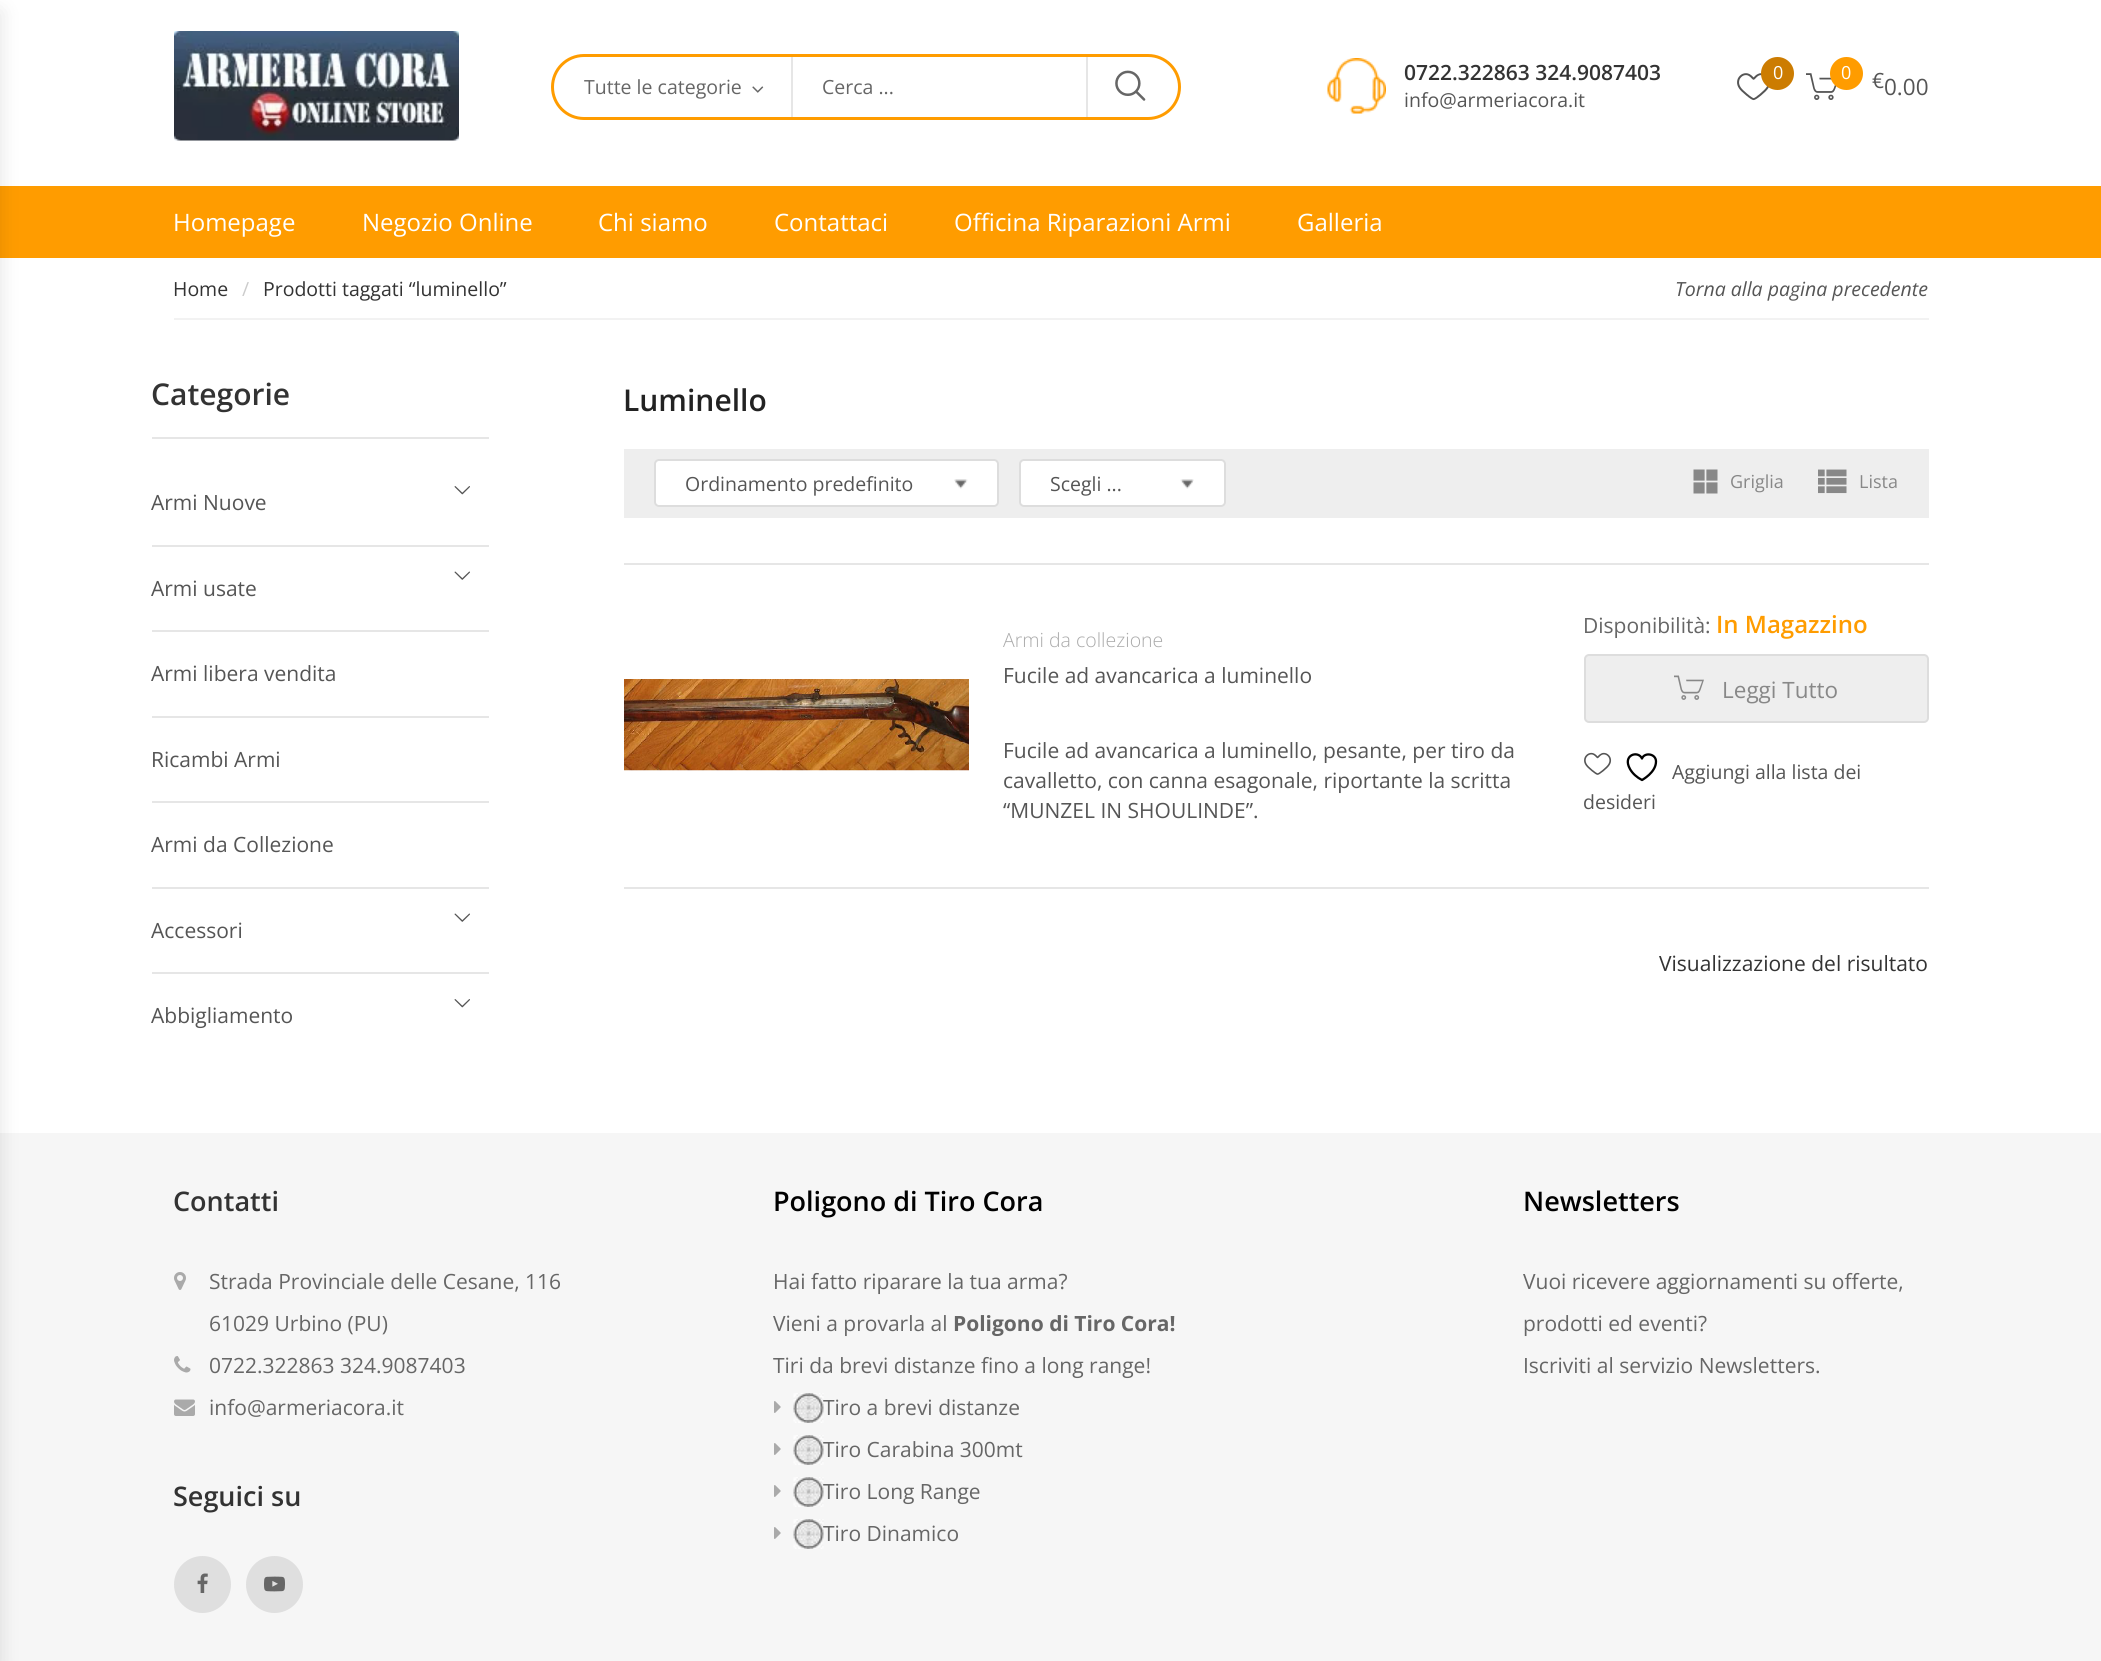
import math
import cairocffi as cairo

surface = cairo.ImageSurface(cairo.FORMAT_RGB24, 2101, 1661)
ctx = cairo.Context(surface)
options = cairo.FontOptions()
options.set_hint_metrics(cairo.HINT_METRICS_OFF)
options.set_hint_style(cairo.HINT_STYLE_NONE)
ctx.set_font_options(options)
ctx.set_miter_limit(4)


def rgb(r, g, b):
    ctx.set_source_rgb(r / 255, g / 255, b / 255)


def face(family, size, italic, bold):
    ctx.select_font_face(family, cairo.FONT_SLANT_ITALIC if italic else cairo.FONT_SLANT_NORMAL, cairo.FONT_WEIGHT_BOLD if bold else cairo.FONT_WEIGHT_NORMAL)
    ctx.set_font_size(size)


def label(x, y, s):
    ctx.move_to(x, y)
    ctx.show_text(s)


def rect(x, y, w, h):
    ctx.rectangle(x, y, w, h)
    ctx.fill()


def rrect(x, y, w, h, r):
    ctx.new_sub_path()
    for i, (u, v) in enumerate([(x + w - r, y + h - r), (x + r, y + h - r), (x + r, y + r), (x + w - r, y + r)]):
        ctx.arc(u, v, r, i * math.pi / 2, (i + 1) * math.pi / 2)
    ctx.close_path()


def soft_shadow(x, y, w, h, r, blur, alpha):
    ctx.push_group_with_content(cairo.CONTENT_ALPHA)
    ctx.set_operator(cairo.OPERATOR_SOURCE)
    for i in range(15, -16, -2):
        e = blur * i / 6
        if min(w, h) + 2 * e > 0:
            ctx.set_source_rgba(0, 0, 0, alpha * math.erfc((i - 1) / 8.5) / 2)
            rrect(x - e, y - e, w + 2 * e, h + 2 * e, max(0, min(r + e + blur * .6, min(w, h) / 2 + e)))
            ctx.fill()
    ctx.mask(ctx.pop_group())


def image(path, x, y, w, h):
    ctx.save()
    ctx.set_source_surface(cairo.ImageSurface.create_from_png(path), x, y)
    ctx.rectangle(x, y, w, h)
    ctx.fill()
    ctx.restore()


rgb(255, 255, 255)
ctx.paint()
rgb(255, 156, 0)
rect(0, 186, 2101, 72)
rgb(246, 246, 246)
rect(0, 1133, 2101, 528)
rgb(0, 0, 0)
soft_shadow(-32, 12, 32, 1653, 0, 10.5, 0.11)
image('image0.png', 174, 31, 285, 110)
rrect(552.5, 55.5, 627, 63, 31.5)
rgb(255, 156, 0)
ctx.set_line_width(3)
ctx.stroke()
rgb(230, 230, 230)
rect(791, 57, 2, 60)
face('Open Sans', 19.5, 0, 0)
rgb(102, 102, 102)
label(584, 94, 'Tutte le categorie')
image('image1.png', 752, 86, 12, 7)
label(822, 94, 'Cerca ...')
rgb(230, 230, 230)
rect(1086, 57, 2, 60)
image('image2.png', 1115, 70, 31, 31)
image('image3.png', 1327, 58, 59, 56)
face('Open Sans SemiBold', 21, 0, 0)
rgb(51, 51, 51)
label(1404, 80, '0722.322863 324.9087403')
face('Open Sans', 19.5, 0, 0)
rgb(85, 85, 85)
label(1404, 107, 'info@armeriacora.it')
image('image4.png', 1737, 73, 32, 28)
rgb(204, 124, 1)
ctx.arc(1777.5, 73.5, 16.5, 0, 2 * math.pi)
ctx.fill()
face('Open Sans', 18, 0, 0)
rgb(255, 255, 255)
label(1773, 79, '0')
image('image5.png', 1806, 73, 31, 27)
rgb(255, 156, 0)
ctx.arc(1846.5, 73.5, 16.5, 0, 2 * math.pi)
ctx.fill()
rgb(255, 255, 255)
label(1841, 79, '0')
face('Open Sans', 21, 0, 0)
rgb(85, 85, 85)
label(1872, 88, '€')
face('Open Sans', 22.5, 0, 0)
label(1884, 95, '0.00')
face('Open Sans', 24, 0, 0)
rgb(255, 255, 255)
label(173, 231, 'Homepage')
label(362, 231, 'Negozio Online')
label(598, 231, 'Chi siamo')
label(774, 231, 'Contattaci')
label(954, 231, 'Officina Riparazioni Armi')
label(1297, 231, 'Galleria')
rgb(242, 242, 242)
rect(174, 318, 1755, 2)
face('Open Sans', 19.5, 0, 0)
rgb(51, 51, 51)
label(173, 296, 'Home')
rgb(204, 204, 204)
label(242, 296, '/')
rgb(51, 51, 51)
label(263, 296, 'Prodotti taggati “luminello”')
face('Open Sans', 19.5, 1, 0)
rgb(85, 85, 85)
label(1675, 296, 'Torna alla pagina precedente')
rgb(230, 230, 230)
rect(152, 437, 337, 2)
face('Open Sans SemiBold', 30, 0, 0)
rgb(51, 51, 51)
label(151, 405, 'Categorie')
rgb(230, 230, 230)
rect(152, 545, 337, 2)
image('image6.png', 454, 486, 16, 9)
face('Open Sans', 21, 0, 0)
rgb(85, 85, 85)
label(151, 510, 'Armi Nuove')
rgb(230, 230, 230)
rect(152, 630, 337, 2)
image('image7.png', 454, 571, 16, 9)
rgb(85, 85, 85)
label(151, 596, 'Armi usate')
rgb(230, 230, 230)
rect(152, 716, 337, 2)
rgb(85, 85, 85)
label(151, 681, 'Armi libera vendita')
rgb(230, 230, 230)
rect(152, 801, 337, 2)
rgb(85, 85, 85)
label(151, 767, 'Ricambi Armi')
rgb(230, 230, 230)
rect(152, 887, 337, 2)
rgb(85, 85, 85)
label(151, 852, 'Armi da Collezione')
rgb(230, 230, 230)
rect(152, 972, 337, 2)
image('image7.png', 454, 913, 16, 9)
rgb(85, 85, 85)
label(151, 938, 'Accessori')
image('image6.png', 454, 999, 16, 9)
label(151, 1023, 'Abbigliamento')
face('Open Sans SemiBold', 30, 0, 0)
rgb(34, 34, 34)
label(623, 411, 'Luminello')
rgb(238, 238, 238)
rect(624, 449, 1305, 69)
rgb(255, 255, 255)
rrect(655, 460, 343, 46, 4)
ctx.fill_preserve()
rgb(221, 221, 221)
ctx.set_line_width(2)
ctx.stroke()
image('image8.png', 954, 479, 14, 10)
face('Open Sans', 19.5, 0, 0)
rgb(85, 85, 85)
label(685, 491, 'Ordinamento predefinito')
rgb(255, 255, 255)
rrect(1020, 460, 205, 46, 4)
ctx.fill_preserve()
rgb(221, 221, 221)
ctx.stroke()
image('image9.png', 1180, 479, 14, 10)
rgb(85, 85, 85)
label(1050, 491, 'Scegli ...')
image('image10.png', 1693, 469, 25, 25)
face('Open Sans', 18, 0, 0)
rgb(136, 136, 136)
label(1730, 488, 'Griglia')
image('image11.png', 1818, 469, 29, 25)
label(1859, 488, 'Lista')
rgb(230, 230, 230)
rect(624, 563, 1305, 2)
rect(624, 887, 1305, 2)
image('image12.png', 624, 679, 345, 92)
face('Open Sans Light', 19.5, 0, 0)
rgb(170, 170, 170)
label(1003, 647, 'Armi da collezione')
face('Open Sans', 21, 0, 0)
rgb(85, 85, 85)
label(1003, 683, 'Fucile ad avancarica a luminello')
label(1003, 758, 'Fucile ad avancarica a luminello, pesante, per tiro da')
label(1003, 788, 'cavalletto, con canna esagonale, riportante la scritta')
label(1003, 818, '“MUNZEL IN SHOULINDE”.')
rgb(102, 102, 102)
label(1583, 633, 'Disponibilità:')
face('Open Sans SemiBold', 24, 0, 0)
rgb(255, 156, 0)
label(1716, 633, 'In Magazzino')
rgb(238, 238, 238)
rrect(1585, 655, 343, 67, 4)
ctx.fill_preserve()
rgb(221, 221, 221)
ctx.stroke()
image('image13.png', 1674, 675, 30, 25)
face('Open Sans', 22.5, 0, 0)
rgb(136, 136, 136)
label(1722, 698, 'Leggi Tutto')
image('image14.png', 1584, 752, 28, 23)
ctx.new_path()
ctx.move_to(1656, 761.5)
ctx.curve_to(1656, 753.5, 1644.5, 752, 1642, 758.5)
ctx.curve_to(1638, 750, 1622, 755, 1630, 769)
ctx.curve_to(1632.5, 773.5, 1637, 777.5, 1642, 780)
ctx.curve_to(1642, 780, 1656, 772.5, 1656, 761.5)
ctx.close_path()
rgb(0, 0, 0)
ctx.set_line_width(2.3)
ctx.set_line_cap(cairo.LINE_CAP_ROUND)
ctx.set_line_join(cairo.LINE_JOIN_ROUND)
ctx.stroke()
face('Open Sans', 19.5, 0, 0)
rgb(85, 85, 85)
label(1672, 779, 'Aggiungi alla lista dei')
label(1583, 809, 'desideri')
face('Open Sans', 21, 0, 0)
rgb(51, 51, 51)
label(1659, 971, 'Visualizzazione del risultato')
face('Open Sans SemiBold', 27, 0, 0)
label(173, 1211, 'Contatti')
image('image15.png', 174, 1272, 12, 18)
face('Open Sans', 21, 0, 0)
rgb(102, 102, 102)
label(209, 1289, 'Strada Provinciale delle Cesane, 116')
label(209, 1331, '61029 Urbino (PU)')
image('image16.png', 174, 1356, 17, 17)
label(209, 1373, '0722.322863 324.9087403')
image('image17.png', 174, 1399, 21, 17)
label(209, 1415, 'info@armeriacora.it')
face('Open Sans SemiBold', 27, 0, 0)
rgb(51, 51, 51)
label(173, 1506, 'Seguici su')
rgb(223, 223, 223)
ctx.new_path()
ctx.arc(202.5, 1584.5, 28.5, 0, 2 * math.pi)
ctx.fill()
image('image18.png', 197, 1573, 11, 20)
ctx.arc(274.5, 1584.5, 28.5, 0, 2 * math.pi)
ctx.fill()
image('image19.png', 264, 1576, 21, 16)
rgb(0, 0, 0)
label(773, 1211, 'Poligono di Tiro Cora')
face('Open Sans', 21, 0, 0)
rgb(102, 102, 102)
label(773, 1289, 'Hai fatto riparare la tua arma?')
label(773, 1331, 'Vieni a provarla al')
face('Open Sans', 21, 0, 1)
label(953, 1331, 'Poligono di Tiro Cora!')
face('Open Sans', 21, 0, 0)
label(773, 1373, 'Tiri da brevi distanze fino a long range!')
image('image20.png', 774, 1401, 7, 12)
image('image21.png', 793, 1393, 31, 30)
label(823, 1415, 'Tiro a brevi distanze')
image('image20.png', 774, 1443, 7, 12)
image('image21.png', 793, 1435, 31, 30)
label(823, 1457, 'Tiro Carabina 300mt')
image('image20.png', 774, 1485, 7, 12)
image('image21.png', 793, 1477, 31, 30)
label(823, 1499, 'Tiro Long Range')
image('image20.png', 774, 1527, 7, 12)
image('image21.png', 793, 1519, 31, 30)
label(823, 1541, 'Tiro Dinamico')
face('Open Sans SemiBold', 27, 0, 0)
rgb(0, 0, 0)
label(1523, 1211, 'Newsletters')
face('Open Sans', 21, 0, 0)
rgb(102, 102, 102)
label(1523, 1289, 'Vuoi ricevere aggiornamenti su offerte,')
label(1523, 1331, 'prodotti ed eventi?')
label(1523, 1373, 'Iscriviti al servizio Newsletters.')
surface.write_to_png('render.png')
